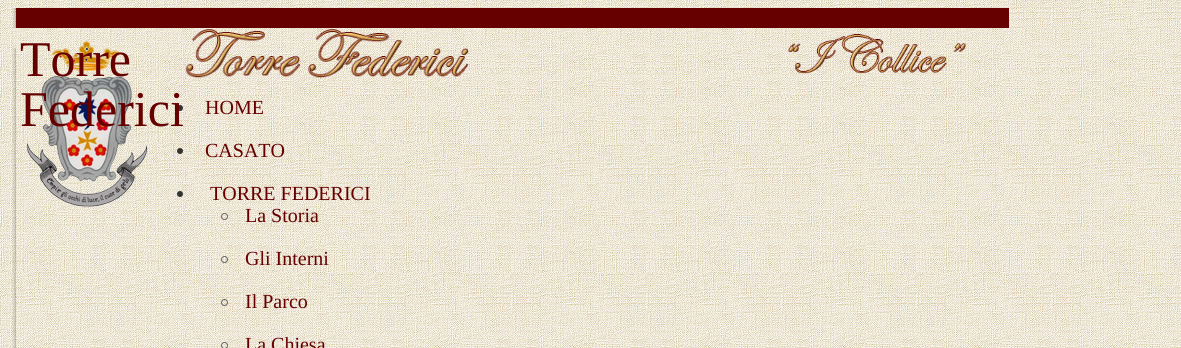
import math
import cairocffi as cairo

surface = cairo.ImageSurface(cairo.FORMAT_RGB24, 1181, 348)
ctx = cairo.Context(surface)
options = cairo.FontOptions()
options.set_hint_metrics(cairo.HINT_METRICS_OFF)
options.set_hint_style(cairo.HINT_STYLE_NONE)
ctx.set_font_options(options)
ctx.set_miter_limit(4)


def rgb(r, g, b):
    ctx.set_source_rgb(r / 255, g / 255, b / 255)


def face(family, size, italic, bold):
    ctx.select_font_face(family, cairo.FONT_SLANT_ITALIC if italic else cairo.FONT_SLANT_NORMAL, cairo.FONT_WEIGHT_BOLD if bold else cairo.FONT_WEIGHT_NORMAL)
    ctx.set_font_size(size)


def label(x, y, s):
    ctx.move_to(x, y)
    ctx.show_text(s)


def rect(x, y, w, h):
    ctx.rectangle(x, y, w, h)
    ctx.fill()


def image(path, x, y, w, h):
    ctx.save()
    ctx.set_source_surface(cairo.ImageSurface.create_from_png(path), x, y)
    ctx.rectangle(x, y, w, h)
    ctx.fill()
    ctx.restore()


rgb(255, 255, 255)
ctx.paint()
image('image0.png', 0, 0, 1181, 348)
image('image1.png', 12, 8, 4, 20)
rgb(102, 0, 0)
rect(16, 8, 993, 20)
image('image2.png', 26, 41, 122, 166)
face('Liberation Serif', 50, 0, 0)
label(20, 76, 'Torre')
rgb(51, 51, 51)
ctx.new_path()
ctx.arc(180, 108, 3, 0, 2 * math.pi)
ctx.fill()
rgb(102, 0, 0)
label(20, 126, 'Federici')
image('image3.png', 185, 29, 284, 49)
image('image4.png', 788, 34, 178, 40)
image('image5.png', 12, 48, 4, 300)
face('Liberation Serif', 20, 0, 0)
label(205, 114, 'HOME')
rgb(51, 51, 51)
ctx.new_path()
ctx.arc(180, 151, 3, 0, 2 * math.pi)
ctx.fill()
rgb(102, 0, 0)
label(205, 157, 'CASATO')
rgb(51, 51, 51)
ctx.new_path()
ctx.arc(180, 194, 3, 0, 2 * math.pi)
ctx.fill()
rgb(102, 0, 0)
label(210, 200, 'TORRE FEDERICI')
ctx.new_path()
ctx.arc(224.5, 216.5, 3, 0, 2 * math.pi)
rgb(102, 102, 102)
ctx.set_line_width(1)
ctx.stroke()
rgb(102, 0, 0)
label(245, 222, 'La Storia')
ctx.new_path()
ctx.arc(224.5, 259.5, 3, 0, 2 * math.pi)
rgb(102, 102, 102)
ctx.stroke()
rgb(102, 0, 0)
label(245, 265, 'Gli Interni')
ctx.new_path()
ctx.arc(224.5, 302.5, 3, 0, 2 * math.pi)
rgb(102, 102, 102)
ctx.stroke()
rgb(102, 0, 0)
label(245, 308, 'Il Parco')
ctx.new_path()
ctx.arc(224.5, 345.5, 3, 0, 2 * math.pi)
rgb(102, 102, 102)
ctx.stroke()
rgb(102, 0, 0)
label(245, 351, 'La Chiesa')
surface.write_to_png('render.png')
